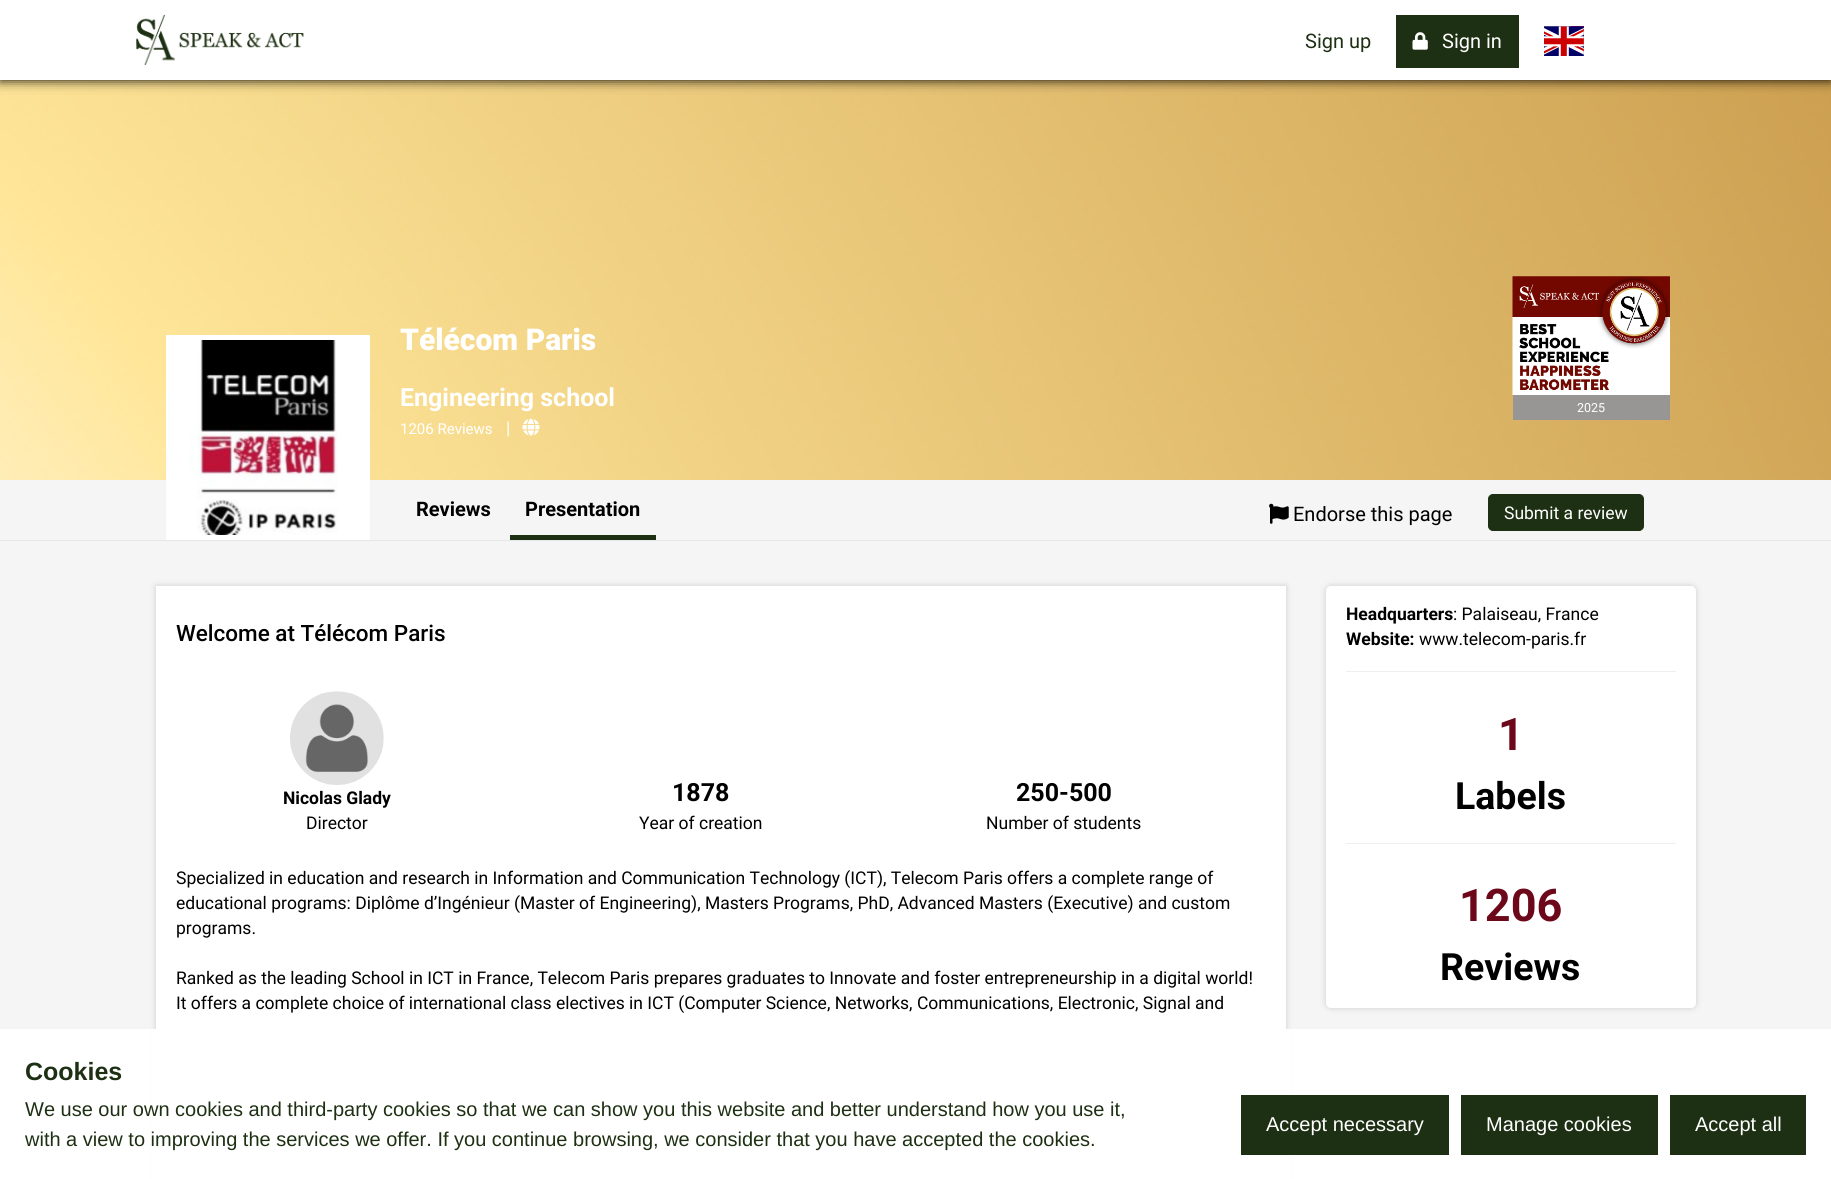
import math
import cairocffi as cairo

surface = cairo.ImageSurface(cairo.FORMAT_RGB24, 1831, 1179)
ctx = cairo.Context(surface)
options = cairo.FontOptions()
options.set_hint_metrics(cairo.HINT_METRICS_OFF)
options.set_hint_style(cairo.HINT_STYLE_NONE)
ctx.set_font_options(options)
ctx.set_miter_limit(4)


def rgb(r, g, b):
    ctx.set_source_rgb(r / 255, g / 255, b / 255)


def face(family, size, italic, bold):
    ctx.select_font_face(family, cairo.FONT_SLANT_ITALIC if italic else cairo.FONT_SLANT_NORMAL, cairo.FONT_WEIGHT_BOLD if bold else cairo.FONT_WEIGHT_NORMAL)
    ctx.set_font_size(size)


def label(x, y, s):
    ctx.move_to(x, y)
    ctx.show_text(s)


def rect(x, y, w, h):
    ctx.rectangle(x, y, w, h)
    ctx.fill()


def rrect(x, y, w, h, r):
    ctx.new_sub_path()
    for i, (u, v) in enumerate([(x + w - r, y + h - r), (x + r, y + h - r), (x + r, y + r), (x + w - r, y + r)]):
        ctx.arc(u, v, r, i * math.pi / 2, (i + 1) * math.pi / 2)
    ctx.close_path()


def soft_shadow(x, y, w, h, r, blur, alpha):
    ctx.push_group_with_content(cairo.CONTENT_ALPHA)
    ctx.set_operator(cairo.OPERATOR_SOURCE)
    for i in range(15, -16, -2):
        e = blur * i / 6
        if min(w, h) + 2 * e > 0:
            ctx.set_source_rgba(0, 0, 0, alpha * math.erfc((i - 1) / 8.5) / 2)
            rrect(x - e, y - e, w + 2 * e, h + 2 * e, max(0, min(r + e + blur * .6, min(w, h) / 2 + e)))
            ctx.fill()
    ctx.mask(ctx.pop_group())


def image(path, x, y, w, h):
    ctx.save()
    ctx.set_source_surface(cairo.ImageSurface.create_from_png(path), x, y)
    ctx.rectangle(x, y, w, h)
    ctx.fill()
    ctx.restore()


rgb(255, 255, 255)
ctx.paint()
image('image3.png', 0, 80, 1831, 400)
rgb(0, 0, 0)
soft_shadow(0, 0, 1831, 80, 0, 6, 1)
rgb(255, 255, 255)
rect(0, 0, 1831, 80)
image('image0.png', 136, 15, 168, 50)
face('Roboto', 20, 0, 0)
rgb(30, 48, 19)
label(1305, 48, 'Sign up')
rect(1396, 15, 123, 53)
image('image1.png', 1412, 32, 16, 18)
rgb(255, 255, 255)
label(1442, 48, 'Sign in')
rgb(243, 24, 48)
rect(1571, 26, 13, 23)
image('image2.png', 1544, 26, 40, 30)
rgb(245, 245, 245)
rect(0, 480, 1831, 60)
rgb(255, 255, 255)
rect(166, 335, 204, 205)
image('image4.png', 189, 340, 149, 195)
face('Roboto Black', 30, 0, 0)
label(400, 350, 'Télécom Paris')
face('Roboto', 25, 0, 1)
label(400, 406, 'Engineering school')
face('Roboto', 15, 0, 0)
label(400, 434, '1206 Reviews')
face('Roboto', 17.5, 0, 0)
label(506, 434, '|')
image('image5.png', 522, 418, 18, 18)
image('image6.png', 1512, 276, 158, 119)
rgb(152, 149, 149)
rect(1513, 395, 157, 25)
face('Roboto', 12.5, 0, 0)
rgb(255, 255, 255)
label(1577, 412, '2025')
face('Roboto', 20, 0, 1)
rgb(0, 0, 0)
label(416, 516, 'Reviews')
rgb(30, 48, 19)
rect(510, 535, 146, 5)
rgb(0, 0, 0)
label(525, 516, 'Presentation')
image('image7.png', 1269, 503, 20, 21)
face('Roboto', 20, 0, 0)
label(1293, 521, 'Endorse this page')
rgb(30, 48, 19)
rrect(1488.5, 494.5, 155, 36, 4.5)
ctx.fill_preserve()
ctx.set_line_width(1)
ctx.stroke()
face('Roboto', 17.5, 0, 0)
rgb(255, 255, 255)
label(1504, 519, 'Submit a review')
rgb(245, 245, 245)
rect(0, 541, 1831, 488)
rgb(229, 231, 235)
rect(0, 540, 1831, 1)
rgb(204, 204, 204)
soft_shadow(156, 586, 1130, 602, 0, 3, 1)
rgb(255, 255, 255)
rect(156, 586, 1130, 443)
face('Roboto Medium', 22.5, 0, 0)
rgb(0, 0, 0)
label(176, 641, 'Welcome at Télécom Paris')
image('image8.png', 290, 691, 94, 94)
face('Roboto', 17.5, 0, 1)
label(283, 804, 'Nicolas Glady')
face('Roboto', 17.5, 0, 0)
label(306, 829, 'Director')
face('Roboto', 25, 0, 1)
label(672, 801, '1878')
face('Roboto', 17.5, 0, 0)
label(639, 829, 'Year of creation')
face('Roboto', 25, 0, 1)
label(1016, 801, '250-500')
face('Roboto', 17.5, 0, 0)
label(986, 829, 'Number of students')
label(176, 884, 'Specialized in education and research in Information and Communication Technology (ICT), Telecom Paris offers a complete range of')
label(176, 909, 'educational programs: Diplôme d’Ingénieur (Master of Engineering), Masters Programs, PhD, Advanced Masters (Executive) and custom')
label(176, 934, 'programs.')
label(176, 984, 'Ranked as the leading School in ICT in France, Telecom Paris prepares graduates to Innovate and foster entrepreneurship in a digital world!')
label(176, 1009, 'It offers a complete choice of international class electives in ICT (Computer Science, Networks, Communications, Electronic, Signal and')
rgb(204, 204, 204)
soft_shadow(1326, 586, 370, 422, 5, 3, 1)
rgb(255, 255, 255)
rrect(1326, 586, 370, 422, 5)
ctx.fill()
face('Roboto', 17.5, 0, 1)
rgb(0, 0, 0)
label(1346, 620, 'Headquarters')
face('Roboto', 17.5, 0, 0)
label(1453, 620, ': Palaiseau, France')
face('Roboto', 17.5, 0, 1)
label(1346, 645, 'Website:')
face('Roboto', 17.5, 0, 0)
label(1419, 645, 'www.telecom-paris.fr')
rgb(238, 238, 238)
rect(1346, 671, 330, 1)
face('Roboto', 45, 0, 1)
rgb(109, 7, 26)
label(1498, 750, '1')
face('Roboto', 37.5, 0, 1)
rgb(0, 0, 0)
label(1455, 809, 'Labels')
rgb(238, 238, 238)
rect(1346, 843, 330, 1)
face('Roboto', 45, 0, 1)
rgb(109, 7, 26)
label(1459, 921, '1206')
face('Roboto', 37.5, 0, 1)
rgb(0, 0, 0)
label(1440, 980, 'Reviews')
rgb(255, 255, 255)
rect(151, 1029, 1140, 150)
face('Liberation Sans', 25, 0, 1)
rgb(30, 48, 19)
label(25, 1080, 'Cookies')
face('Liberation Sans', 20, 0, 0)
label(25, 1116, 'We use our own cookies and third-party cookies so that we can show you this website and better understand how you use it,')
label(25, 1146, 'with a view to improving the services we offer. If you continue browsing, we consider that you have accepted the cookies.')
rect(1241, 1095, 208, 60)
rgb(255, 255, 255)
label(1266, 1131, 'Accept necessary')
rgb(30, 48, 19)
rect(1461, 1095, 197, 60)
rgb(255, 255, 255)
label(1486, 1131, 'Manage cookies')
rgb(30, 48, 19)
rect(1670, 1095, 136, 60)
rgb(255, 255, 255)
label(1695, 1131, 'Accept all')
surface.write_to_png('render.png')
